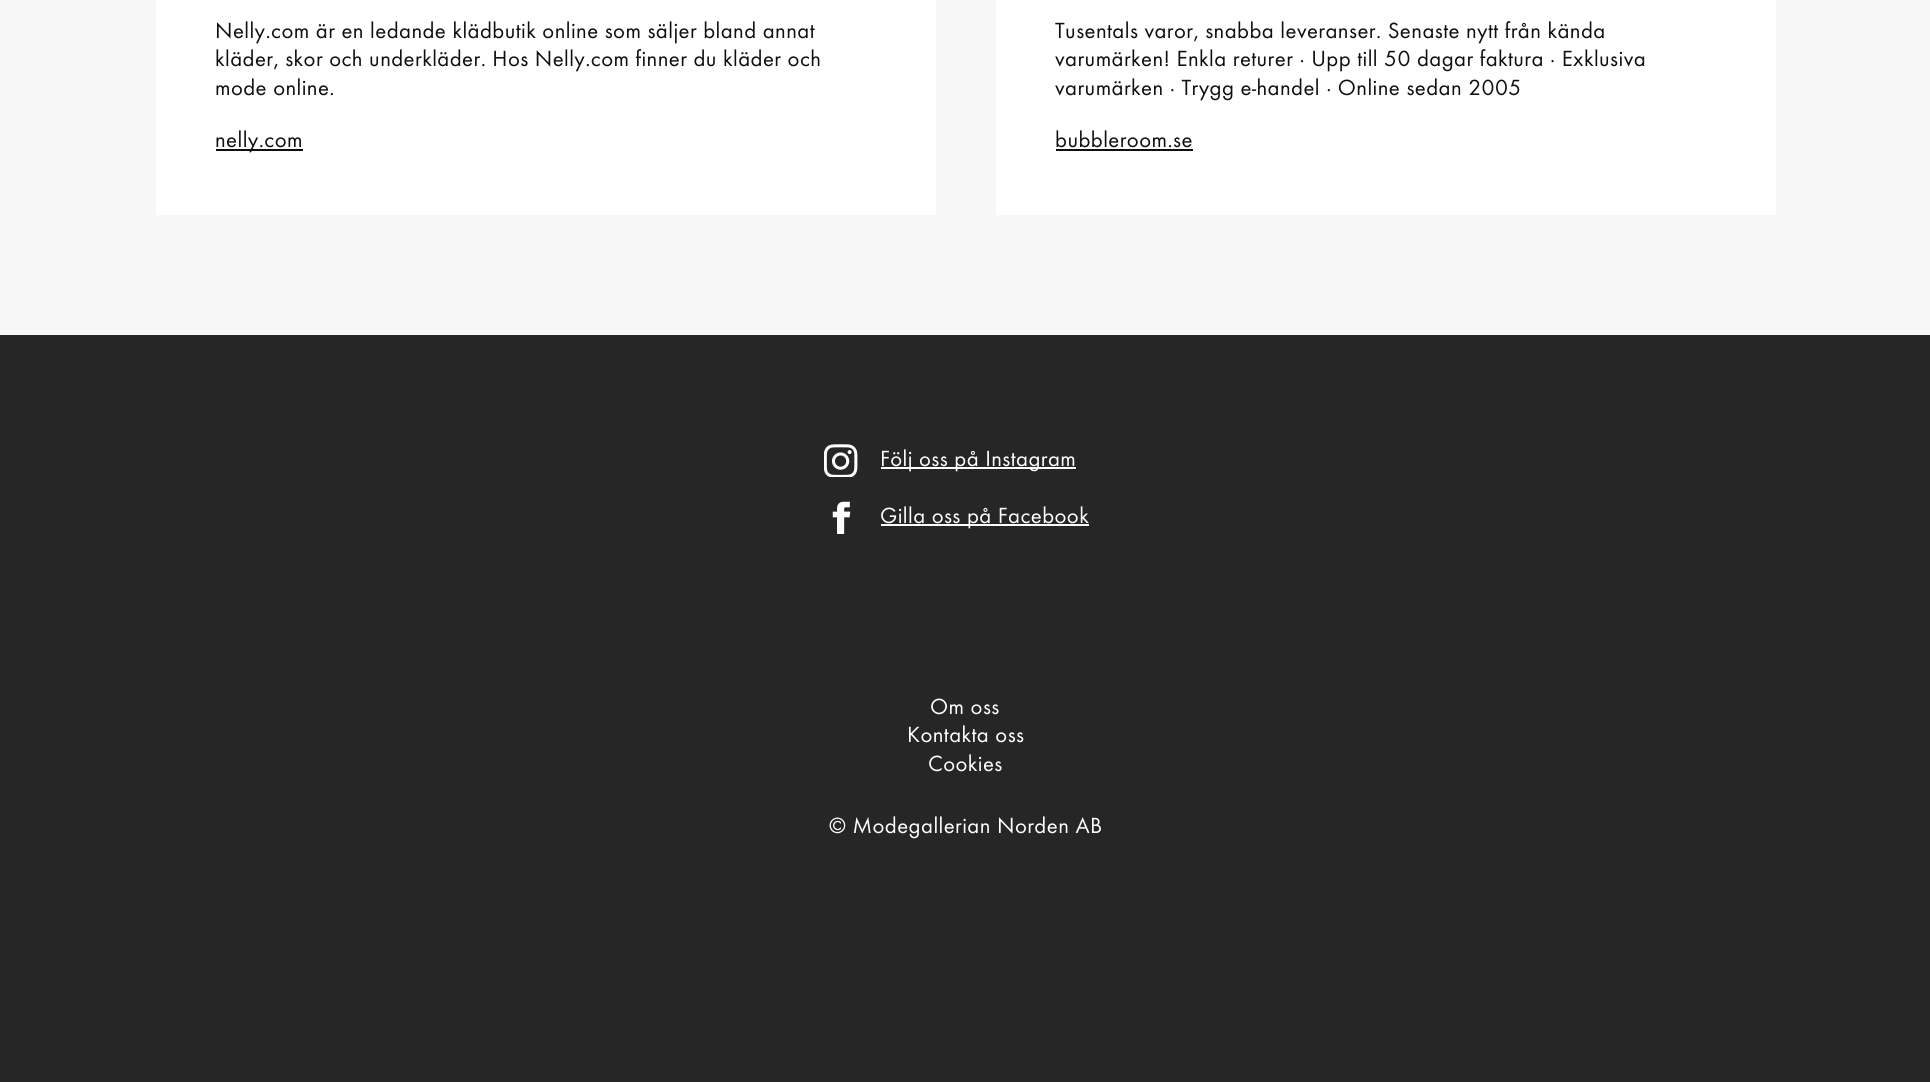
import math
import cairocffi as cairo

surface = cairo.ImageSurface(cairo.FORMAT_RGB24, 1930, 1082)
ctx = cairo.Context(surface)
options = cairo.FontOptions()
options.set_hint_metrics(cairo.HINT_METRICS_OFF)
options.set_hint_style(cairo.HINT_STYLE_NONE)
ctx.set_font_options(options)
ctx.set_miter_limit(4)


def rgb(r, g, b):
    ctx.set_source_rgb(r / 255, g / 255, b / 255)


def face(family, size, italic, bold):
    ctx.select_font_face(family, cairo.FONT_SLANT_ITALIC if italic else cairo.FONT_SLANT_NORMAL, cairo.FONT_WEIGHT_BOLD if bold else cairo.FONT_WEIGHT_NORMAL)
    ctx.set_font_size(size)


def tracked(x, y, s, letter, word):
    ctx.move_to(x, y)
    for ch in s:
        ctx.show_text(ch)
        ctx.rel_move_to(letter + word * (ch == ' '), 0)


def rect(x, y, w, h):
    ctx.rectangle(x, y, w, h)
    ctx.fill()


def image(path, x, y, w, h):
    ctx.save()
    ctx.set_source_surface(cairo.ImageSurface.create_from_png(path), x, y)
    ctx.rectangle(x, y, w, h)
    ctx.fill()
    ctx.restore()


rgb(247, 247, 247)
ctx.paint()
rgb(255, 255, 255)
rect(156, 0, 780, 215)
face('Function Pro', 22.8, 0, 0)
rgb(15, 15, 15)
tracked(215, 38, 'Nelly.com är en ledande klädbutik online som säljer bland annat', 0.43, 0)
tracked(215, 66, 'kläder, skor och underkläder. Hos Nelly.com finner du kläder och', 0.43, 0)
tracked(215, 95, 'mode online.', 0.43, 0)
rect(216, 149, 87, 2)
tracked(215, 147, 'nelly.com', 0.43, 0)
rgb(255, 255, 255)
rect(996, 0, 780, 215)
rgb(15, 15, 15)
tracked(1055, 38, 'Tusentals varor, snabba leveranser. Senaste nytt från kända', 0.43, 0)
tracked(1055, 66, 'varumärken! Enkla returer · Upp till 50 dagar faktura · Exklusiva', 0.43, 0)
tracked(1055, 95, 'varumärken · Trygg e-handel · Online sedan 2005', 0.43, 0)
tracked(1055, 147, 'bubbleroom.se', 0.43, 0)
rect(1056, 149, 137, 2)
rgb(38, 38, 38)
rect(0, 335, 1930, 747)
image('image0.png', 824, 444, 34, 33)
rgb(255, 255, 255)
rect(881, 467, 195, 2)
tracked(880, 466, 'Följ oss på Instagram', 0.43, 0)
image('image1.png', 832, 501, 19, 33)
rect(881, 524, 208, 2)
tracked(880, 523, 'Gilla oss på Facebook', 0.43, 0)
tracked(930, 714, 'Om oss', 0.43, 0)
tracked(907, 742, 'Kontakta oss', 0.43, 0)
tracked(928, 771, 'Cookies', 0.43, 0)
tracked(829, 833, '© Modegallerian Norden AB', 0.43, 0)
surface.write_to_png('render.png')
